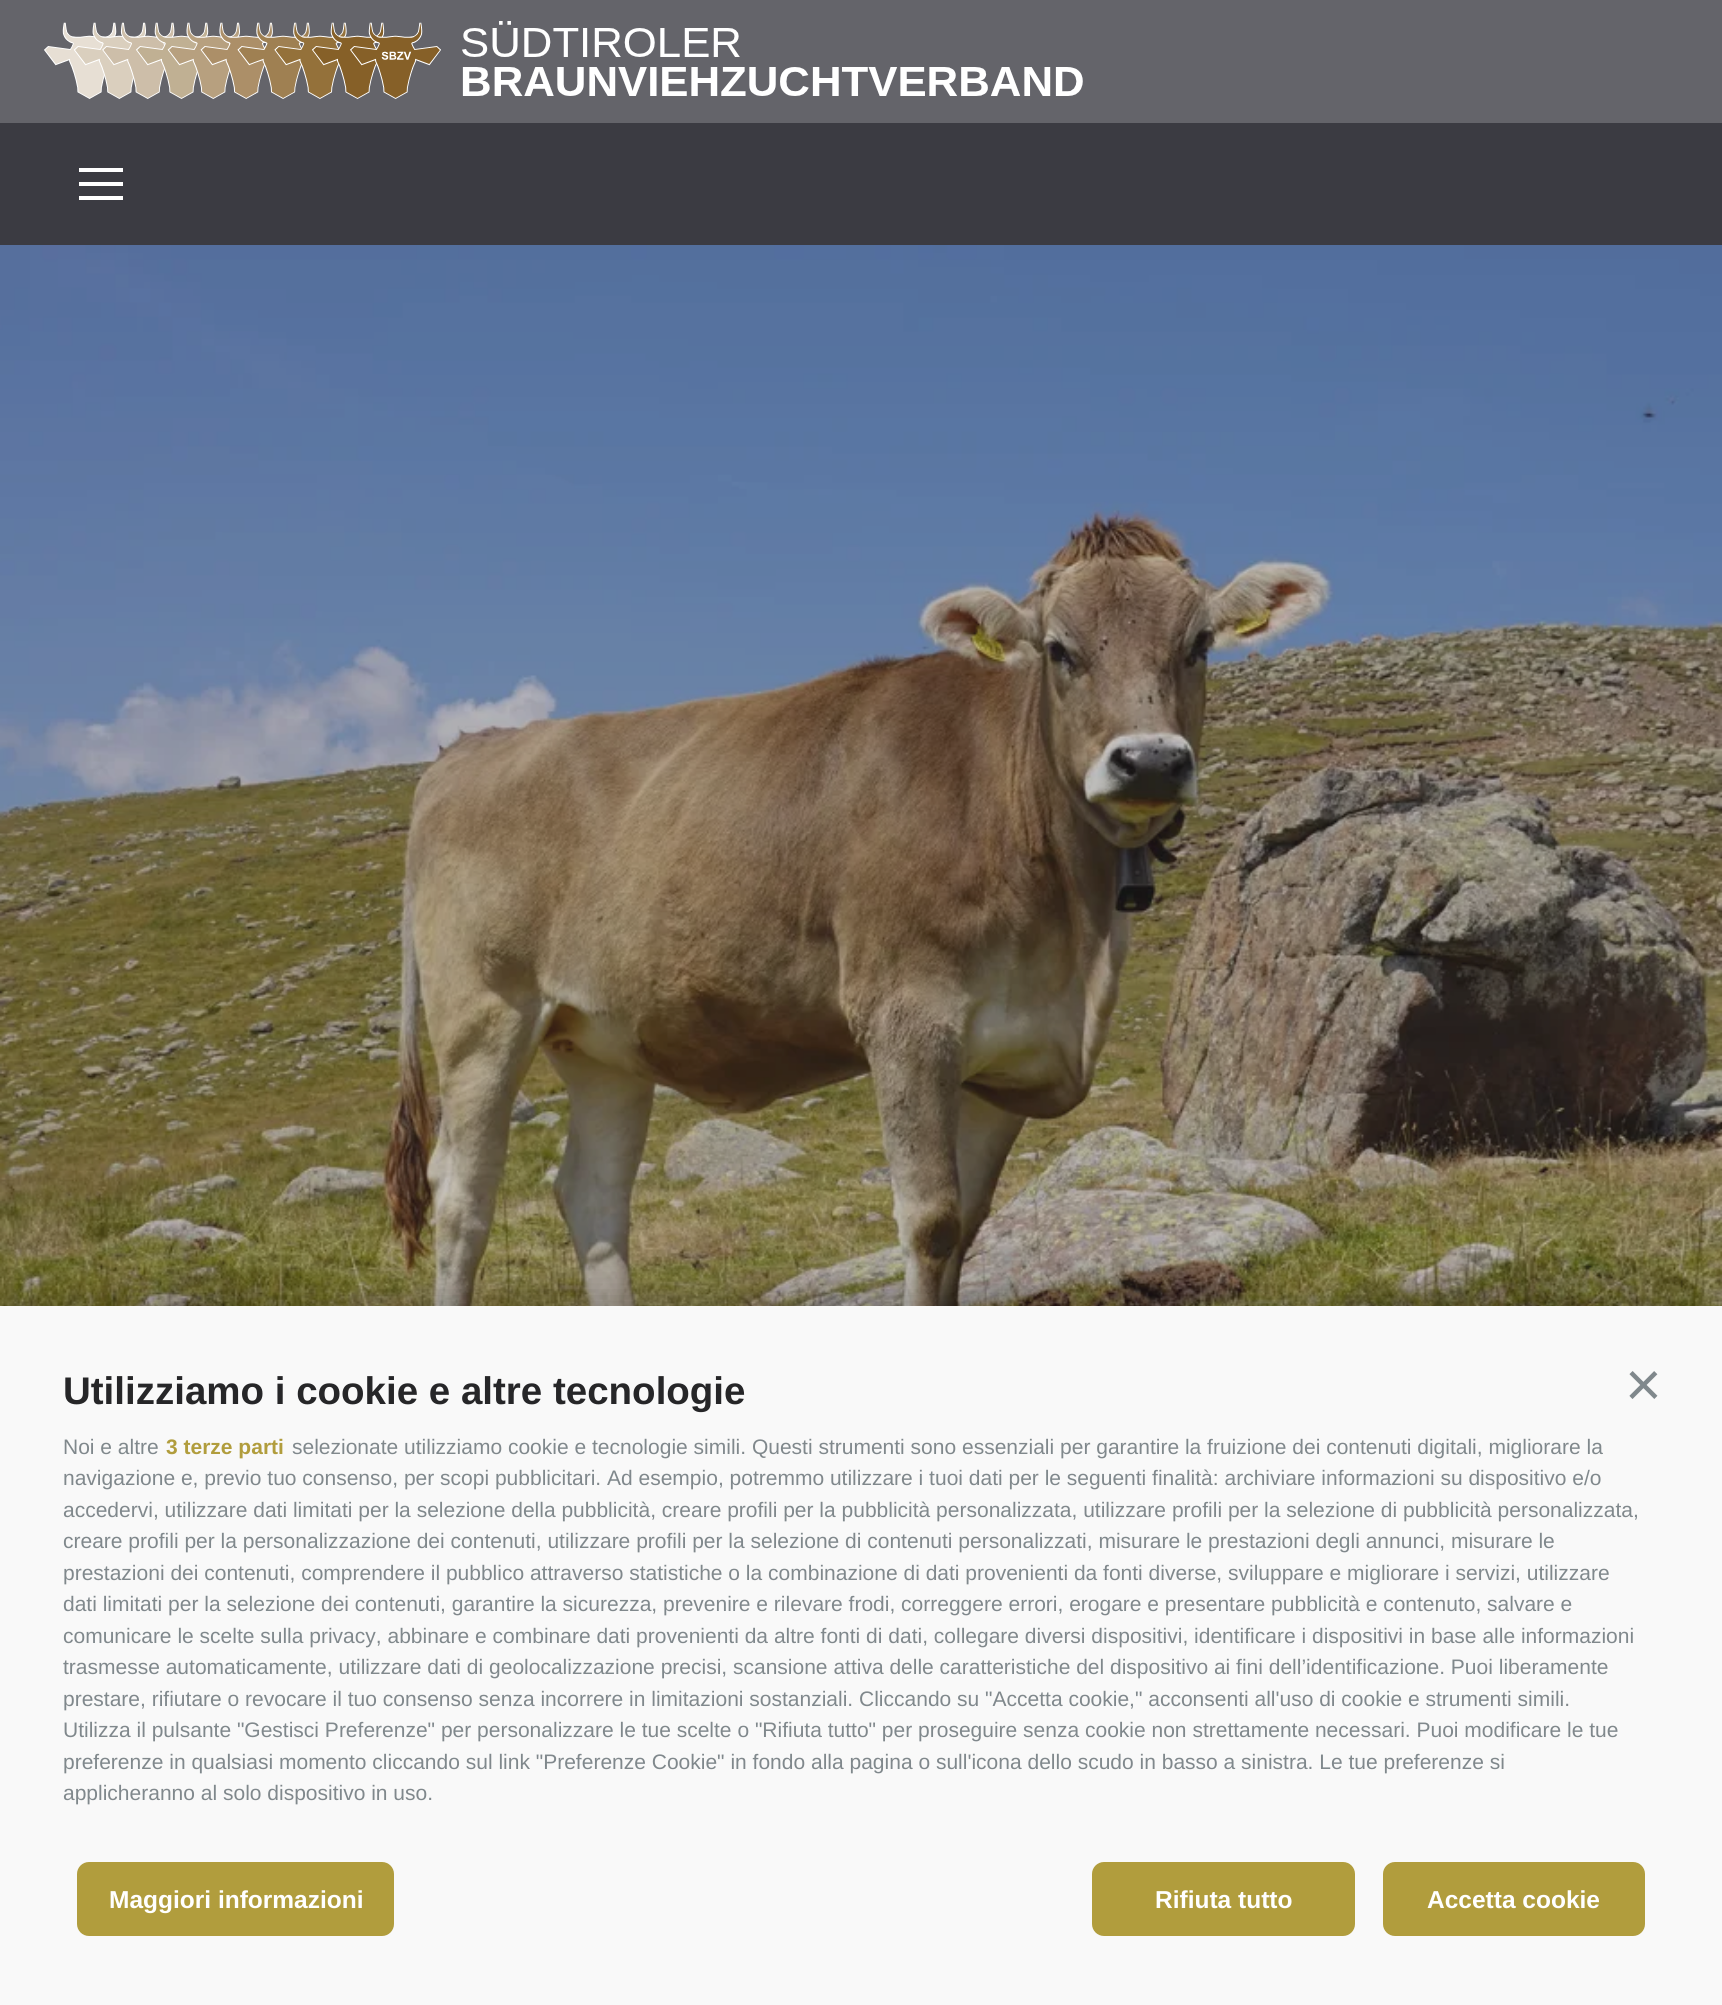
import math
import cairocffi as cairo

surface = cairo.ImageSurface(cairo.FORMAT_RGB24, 1722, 2005)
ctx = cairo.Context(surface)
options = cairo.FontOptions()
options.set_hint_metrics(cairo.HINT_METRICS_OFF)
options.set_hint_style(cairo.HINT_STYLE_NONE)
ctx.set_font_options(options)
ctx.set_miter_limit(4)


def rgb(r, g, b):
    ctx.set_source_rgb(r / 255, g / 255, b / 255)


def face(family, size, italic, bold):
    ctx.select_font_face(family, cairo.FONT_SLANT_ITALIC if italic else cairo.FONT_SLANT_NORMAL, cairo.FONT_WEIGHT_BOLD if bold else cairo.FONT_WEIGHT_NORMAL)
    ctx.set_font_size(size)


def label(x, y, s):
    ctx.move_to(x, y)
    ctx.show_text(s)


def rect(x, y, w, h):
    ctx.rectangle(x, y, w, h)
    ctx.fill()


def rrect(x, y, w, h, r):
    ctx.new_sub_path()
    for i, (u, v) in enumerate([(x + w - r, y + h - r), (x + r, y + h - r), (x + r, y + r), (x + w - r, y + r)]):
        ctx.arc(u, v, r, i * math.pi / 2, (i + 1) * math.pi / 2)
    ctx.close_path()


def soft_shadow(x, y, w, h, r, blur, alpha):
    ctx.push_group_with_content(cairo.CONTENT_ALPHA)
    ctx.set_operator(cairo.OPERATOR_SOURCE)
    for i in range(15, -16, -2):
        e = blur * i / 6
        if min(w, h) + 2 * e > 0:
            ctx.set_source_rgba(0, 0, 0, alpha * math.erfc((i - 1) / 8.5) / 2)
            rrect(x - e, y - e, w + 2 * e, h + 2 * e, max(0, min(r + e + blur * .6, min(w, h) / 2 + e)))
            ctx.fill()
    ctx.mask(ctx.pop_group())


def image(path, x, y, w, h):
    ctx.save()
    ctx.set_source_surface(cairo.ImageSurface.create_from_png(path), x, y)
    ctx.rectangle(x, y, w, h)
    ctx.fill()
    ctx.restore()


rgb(255, 255, 255)
ctx.paint()
rgb(100, 100, 106)
rect(0, 0, 1722, 123)
image('image0.png', 44, 21, 1039, 78)
image('image1.png', 0, 245, 1722, 1061)
ctx.set_source_rgba(0.231, 0.231, 0.259, 0.3)
rect(0, 245, 1722, 1061)
rgb(59, 59, 66)
rect(0, 123, 1722, 122)
rgb(255, 255, 255)
rect(79, 168, 44, 4)
rect(79, 182, 44, 4)
rect(79, 196, 44, 4)
rgb(0, 0, 0)
soft_shadow(0, 1292, 1722, 700, 0, 17.5, 0.2)
rgb(249, 249, 249)
rect(0, 1306, 1722, 699)
face('Liberation Sans', 38.5, 0, 1)
rgb(38, 38, 40)
label(63, 1404, 'Utilizziamo i cookie e altre tecnologie')
face('Liberation Sans', 63, 0, 0)
rgb(128, 136, 140)
label(1625, 1406, '×')
face('Liberation Sans', 21, 0, 0)
label(63, 1454, 'Noi e altre')
face('Liberation Sans', 21, 0, 1)
rgb(177, 157, 61)
label(166, 1454, '3 terze parti')
face('Liberation Sans', 21, 0, 0)
rgb(128, 136, 140)
label(292, 1454, 'selezionate utilizziamo cookie e tecnologie simili. Questi strumenti sono essenziali per garantire la fruizione dei contenuti digitali, migliorare la')
label(63, 1485, 'navigazione e, previo tuo consenso, per scopi pubblicitari. Ad esempio, potremmo utilizzare i tuoi dati per le seguenti finalità: archiviare informazioni su dispositivo e/o')
label(63, 1517, 'accedervi, utilizzare dati limitati per la selezione della pubblicità, creare profili per la pubblicità personalizzata, utilizzare profili per la selezione di pubblicità personalizzata,')
label(63, 1548, 'creare profili per la personalizzazione dei contenuti, utilizzare profili per la selezione di contenuti personalizzati, misurare le prestazioni degli annunci, misurare le')
label(63, 1580, 'prestazioni dei contenuti, comprendere il pubblico attraverso statistiche o la combinazione di dati provenienti da fonti diverse, sviluppare e migliorare i servizi, utilizzare')
label(63, 1611, 'dati limitati per la selezione dei contenuti, garantire la sicurezza, prevenire e rilevare frodi, correggere errori, erogare e presentare pubblicità e contenuto, salvare e')
label(63, 1643, 'comunicare le scelte sulla privacy, abbinare e combinare dati provenienti da altre fonti di dati, collegare diversi dispositivi, identificare i dispositivi in base alle informazioni')
label(63, 1674, 'trasmesse automaticamente, utilizzare dati di geolocalizzazione precisi, scansione attiva delle caratteristiche del dispositivo ai fini dell’identificazione. Puoi liberamente')
label(63, 1706, 'prestare, rifiutare o revocare il tuo consenso senza incorrere in limitazioni sostanziali. Cliccando su "Accetta cookie," acconsenti all\'uso di cookie e strumenti simili.')
label(63, 1737, 'Utilizza il pulsante "Gestisci Preferenze" per personalizzare le tue scelte o "Rifiuta tutto" per proseguire senza cookie non strettamente necessari. Puoi modificare le tue')
label(63, 1769, 'preferenze in qualsiasi momento cliccando sul link "Preferenze Cookie" in fondo alla pagina o sull\'icona dello scudo in basso a sinistra. Le tue preferenze si')
label(63, 1800, 'applicheranno al solo dispositivo in uso.')
rgb(177, 157, 61)
rrect(77, 1862, 317, 74, 12)
ctx.fill()
face('Liberation Sans', 24.5, 0, 1)
rgb(255, 255, 255)
label(109, 1908, 'Maggiori informazioni')
rgb(177, 157, 61)
rrect(1092, 1862, 263, 74, 12)
ctx.fill()
rgb(255, 255, 255)
label(1155, 1908, 'Rifiuta tutto')
rgb(177, 157, 61)
rrect(1383, 1862, 262, 74, 12)
ctx.fill()
rgb(255, 255, 255)
label(1427, 1908, 'Accetta cookie')
surface.write_to_png('render.png')
